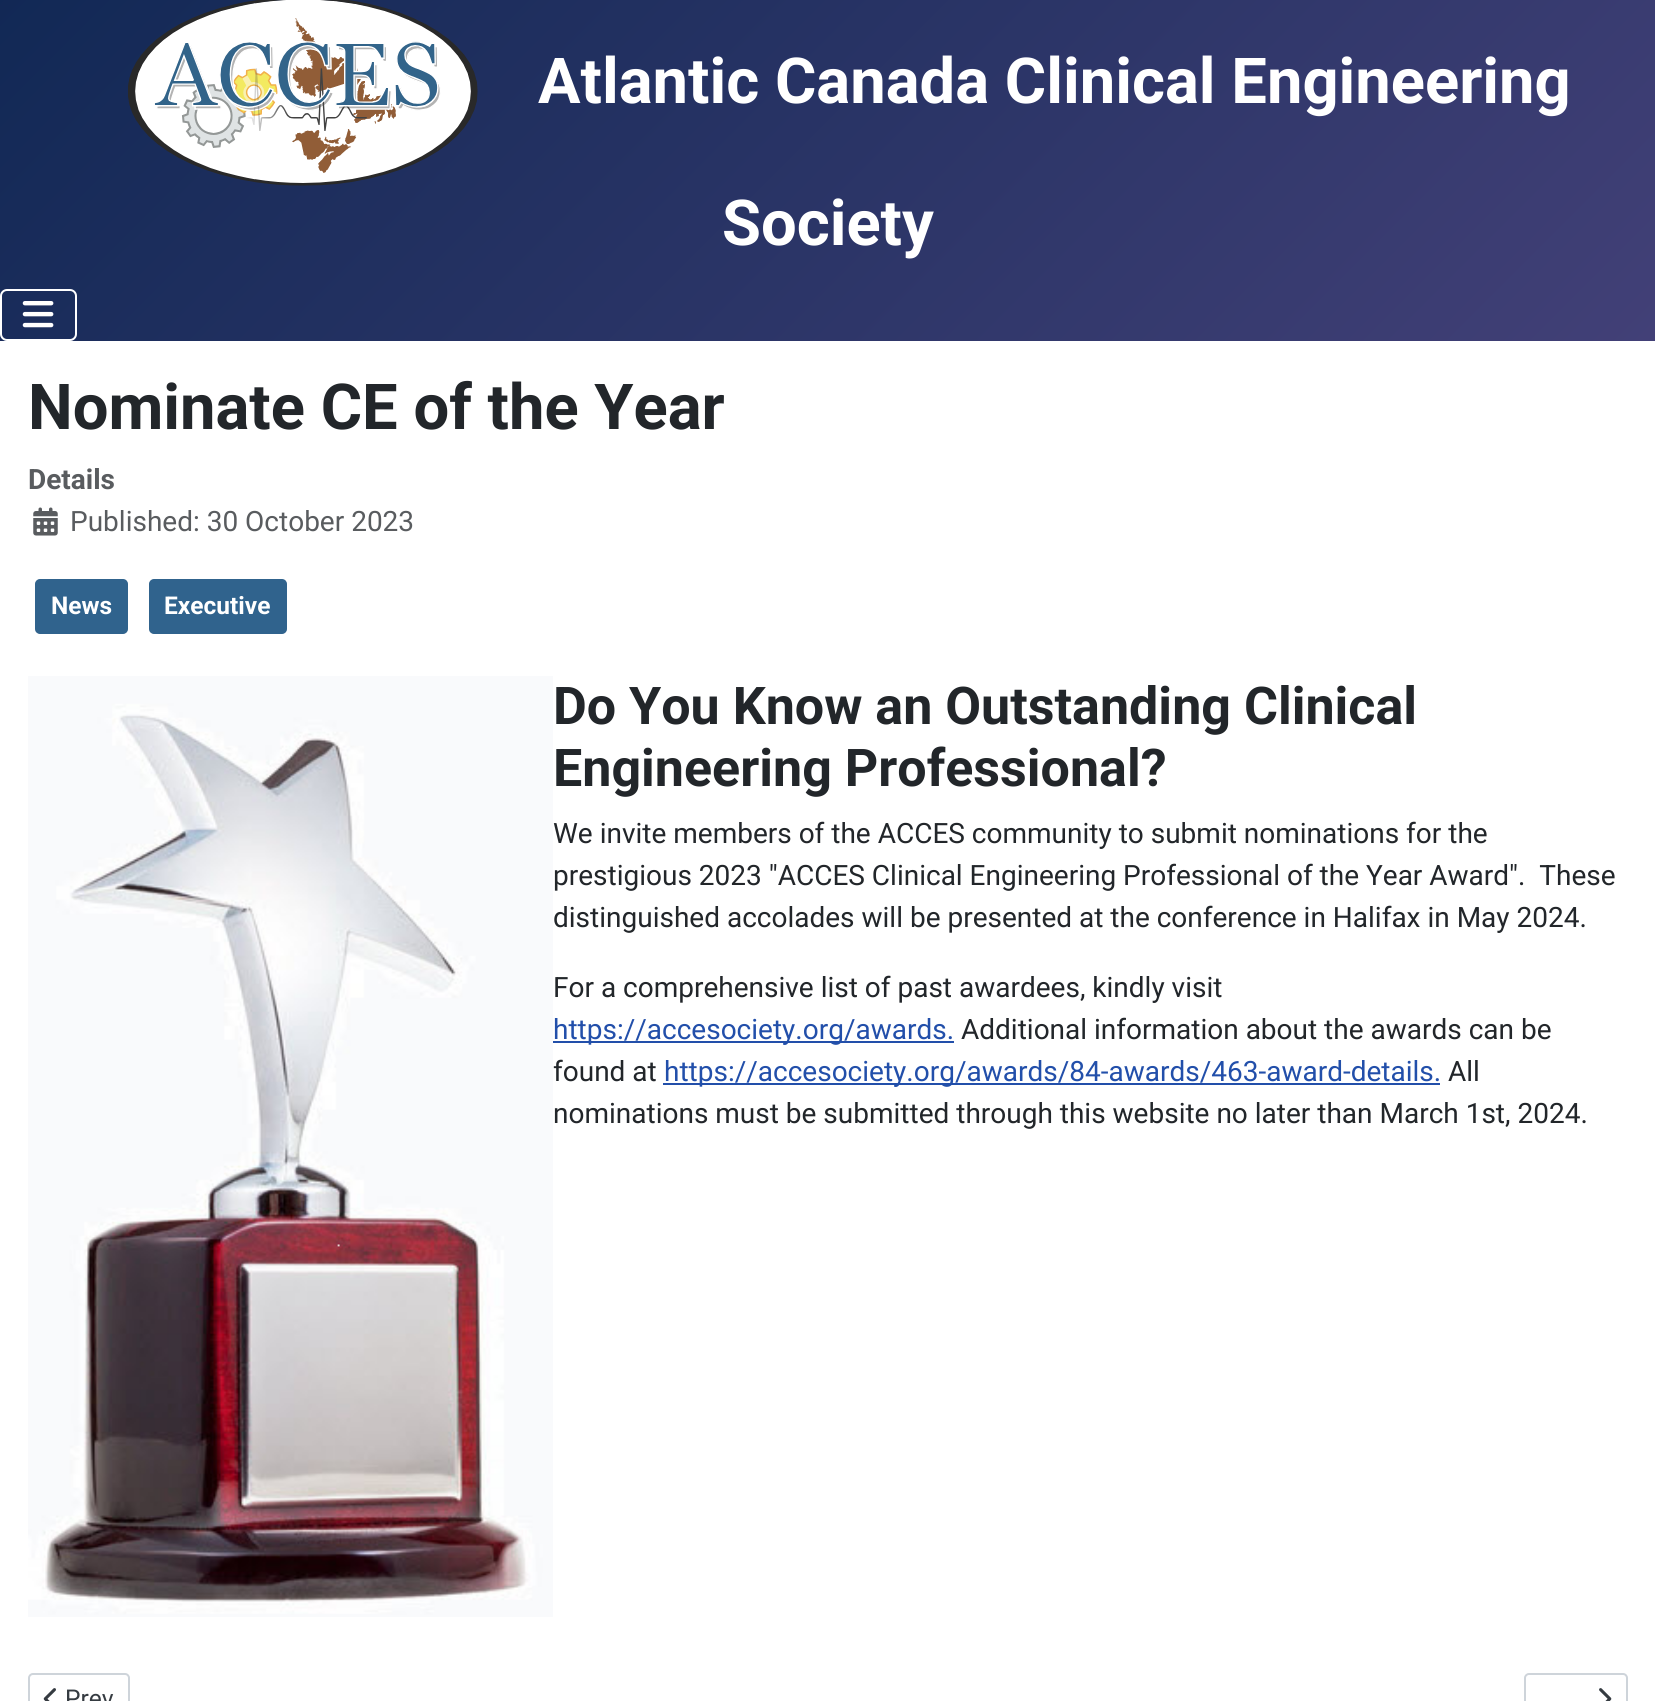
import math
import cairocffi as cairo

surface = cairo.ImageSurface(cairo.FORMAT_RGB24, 1655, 1701)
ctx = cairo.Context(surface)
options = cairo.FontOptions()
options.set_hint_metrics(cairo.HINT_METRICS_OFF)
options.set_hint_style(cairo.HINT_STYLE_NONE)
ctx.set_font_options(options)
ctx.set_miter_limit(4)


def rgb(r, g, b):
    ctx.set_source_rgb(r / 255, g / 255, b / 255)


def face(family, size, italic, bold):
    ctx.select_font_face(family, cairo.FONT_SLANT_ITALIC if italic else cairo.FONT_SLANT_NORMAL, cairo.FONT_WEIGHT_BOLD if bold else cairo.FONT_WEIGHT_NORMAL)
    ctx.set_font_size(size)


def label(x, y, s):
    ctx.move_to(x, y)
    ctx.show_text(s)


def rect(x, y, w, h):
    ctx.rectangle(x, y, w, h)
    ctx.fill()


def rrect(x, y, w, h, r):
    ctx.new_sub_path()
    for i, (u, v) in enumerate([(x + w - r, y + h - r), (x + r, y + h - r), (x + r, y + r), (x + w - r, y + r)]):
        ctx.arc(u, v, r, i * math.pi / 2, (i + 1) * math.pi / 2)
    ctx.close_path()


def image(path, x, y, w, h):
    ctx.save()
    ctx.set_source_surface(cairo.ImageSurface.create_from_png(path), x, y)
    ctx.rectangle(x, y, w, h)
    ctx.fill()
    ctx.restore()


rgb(255, 255, 255)
ctx.paint()
gradient = cairo.LinearGradient(325, -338, 1330, 667)
gradient.add_color_stop_rgba(0, 0.067, 0.157, 0.333, 1)
gradient.add_color_stop_rgba(1, 0.259, 0.251, 0.467, 1)
ctx.set_source(gradient)
rect(0, 0, 1655, 341)
image('image0.png', 128, 0, 350, 186)
face('Roboto', 63.3, 0, 1)
rgb(255, 255, 255)
label(538, 103, 'Atlantic Canada Clinical Engineering')
label(722, 245, 'Society')
rrect(1, 290, 75, 50, 6)
ctx.stroke()
image('image1.png', 22, 301, 32, 27)
rgb(34, 38, 42)
label(28, 429, 'Nominate CE of the Year')
face('Roboto', 28, 0, 1)
rgb(89, 92, 95)
label(28, 489, 'Details')
image('image2.png', 33, 507, 25, 29)
face('Roboto', 28, 0, 0)
label(70, 531, 'Published: 30 October 2023')
rgb(48, 99, 141)
rrect(36, 580, 91, 53, 4)
ctx.fill_preserve()
ctx.stroke()
face('Roboto', 24.5, 0, 1)
rgb(255, 255, 255)
label(51, 614, 'News')
rgb(48, 99, 141)
rrect(150, 580, 136, 53, 4)
ctx.fill_preserve()
ctx.stroke()
rgb(255, 255, 255)
label(164, 614, 'Executive')
image('image3.png', 28, 676, 525, 941)
face('Roboto', 52, 0, 1)
rgb(34, 38, 42)
label(553, 724, 'Do You Know an Outstanding Clinical')
label(553, 786, 'Engineering Professional?')
face('Roboto', 28, 0, 0)
label(553, 843, 'We invite members of the ACCES community to submit nominations for the')
label(553, 885, 'prestigious 2023 "ACCES Clinical Engineering Professional of the Year Award".  These')
label(553, 927, 'distinguished accolades will be presented at the conference in Halifax in May 2024.')
label(553, 997, 'For a comprehensive list of past awardees, kindly visit')
rgb(34, 79, 170)
rect(553, 1041, 401, 2)
label(553, 1039, 'https://accesociety.org/awards.')
rgb(34, 38, 42)
label(961, 1039, 'Additional information about the awards can be')
label(553, 1081, 'found at')
rgb(34, 79, 170)
rect(663, 1083, 777, 2)
label(664, 1081, 'https://accesociety.org/awards/84-awards/463-award-details.')
rgb(34, 38, 42)
label(1448, 1081, 'All')
label(553, 1123, 'nominations must be submitted through this website no later than March 1st, 2024.')
rrect(29, 1674, 100, 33, 4)
rgb(206, 212, 218)
ctx.stroke()
image('image4.png', 43, 1688, 13, 13)
face('Roboto', 24.5, 0, 0)
rgb(53, 59, 65)
label(65, 1707, 'Prev')
rrect(1525, 1674, 102, 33, 4)
rgb(206, 212, 218)
ctx.stroke()
image('image5.png', 1599, 1688, 13, 13)
surface.write_to_png('render.png')
